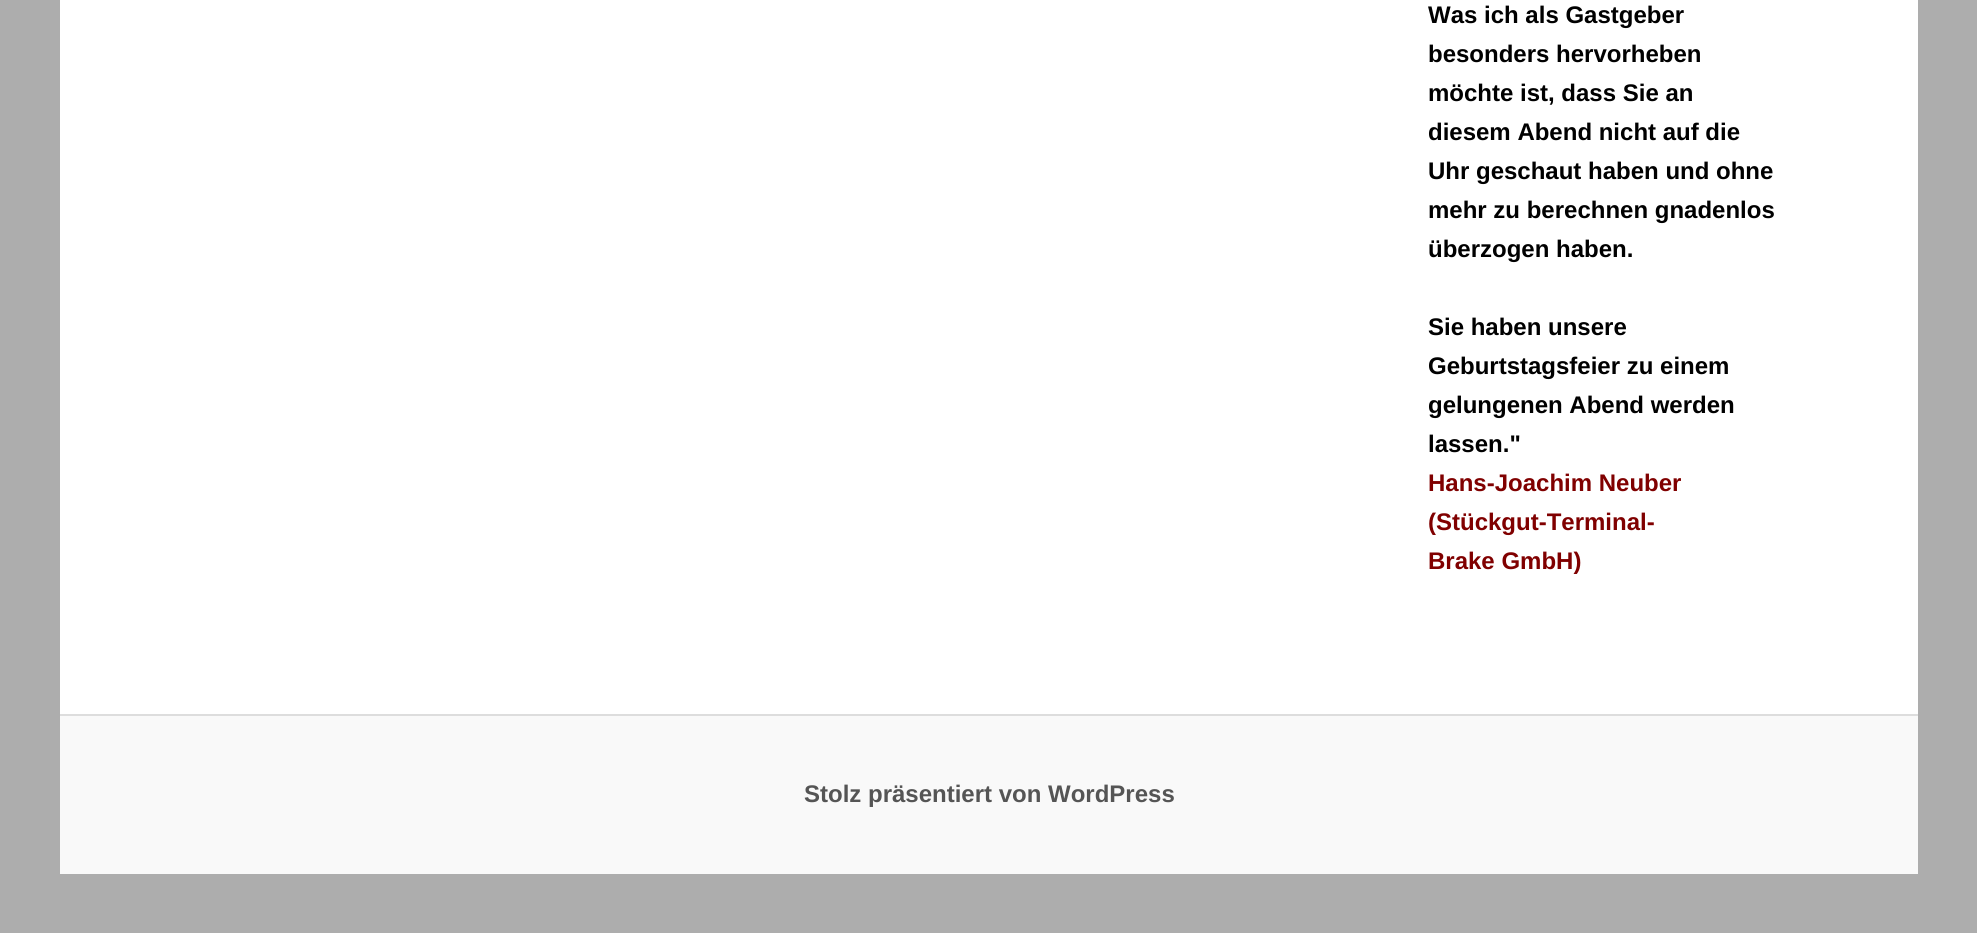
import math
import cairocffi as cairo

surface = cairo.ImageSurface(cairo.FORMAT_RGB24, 1977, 933)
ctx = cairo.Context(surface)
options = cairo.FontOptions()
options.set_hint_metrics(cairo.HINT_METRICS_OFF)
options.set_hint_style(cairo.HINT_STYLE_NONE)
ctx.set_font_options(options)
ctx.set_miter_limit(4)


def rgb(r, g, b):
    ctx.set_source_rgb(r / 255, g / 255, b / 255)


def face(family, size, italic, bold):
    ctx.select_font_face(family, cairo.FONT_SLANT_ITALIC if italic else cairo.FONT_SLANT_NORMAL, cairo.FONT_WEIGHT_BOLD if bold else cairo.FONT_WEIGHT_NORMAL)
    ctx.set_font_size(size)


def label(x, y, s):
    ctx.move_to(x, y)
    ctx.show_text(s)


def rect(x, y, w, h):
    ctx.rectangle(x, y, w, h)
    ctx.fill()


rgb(173, 173, 173)
ctx.paint()
rgb(255, 255, 255)
rect(60, 0, 1858, 714)
face('Liberation Sans', 24, 0, 1)
rgb(0, 0, 0)
label(1428, 23, 'Was ich als Gastgeber')
label(1428, 62, 'besonders hervorheben')
label(1428, 101, 'möchte ist, dass Sie an')
label(1428, 140, 'diesem Abend nicht auf die')
label(1428, 179, 'Uhr geschaut haben und ohne')
label(1428, 218, 'mehr zu berechnen gnadenlos')
label(1428, 257, 'überzogen haben.')
label(1428, 335, 'Sie haben unsere')
label(1428, 374, 'Geburtstagsfeier zu einem')
label(1428, 413, 'gelungenen Abend werden')
label(1428, 452, 'lassen."')
rgb(128, 0, 0)
label(1428, 491, 'Hans-Joachim Neuber')
label(1428, 530, '(Stückgut-Terminal-')
label(1428, 569, 'Brake GmbH)')
rgb(249, 249, 249)
rect(60, 716, 1858, 158)
rgb(221, 221, 221)
rect(60, 714, 1858, 2)
rgb(85, 85, 85)
label(804, 802, 'Stolz präsentiert von WordPress')
surface.write_to_png('render.png')
